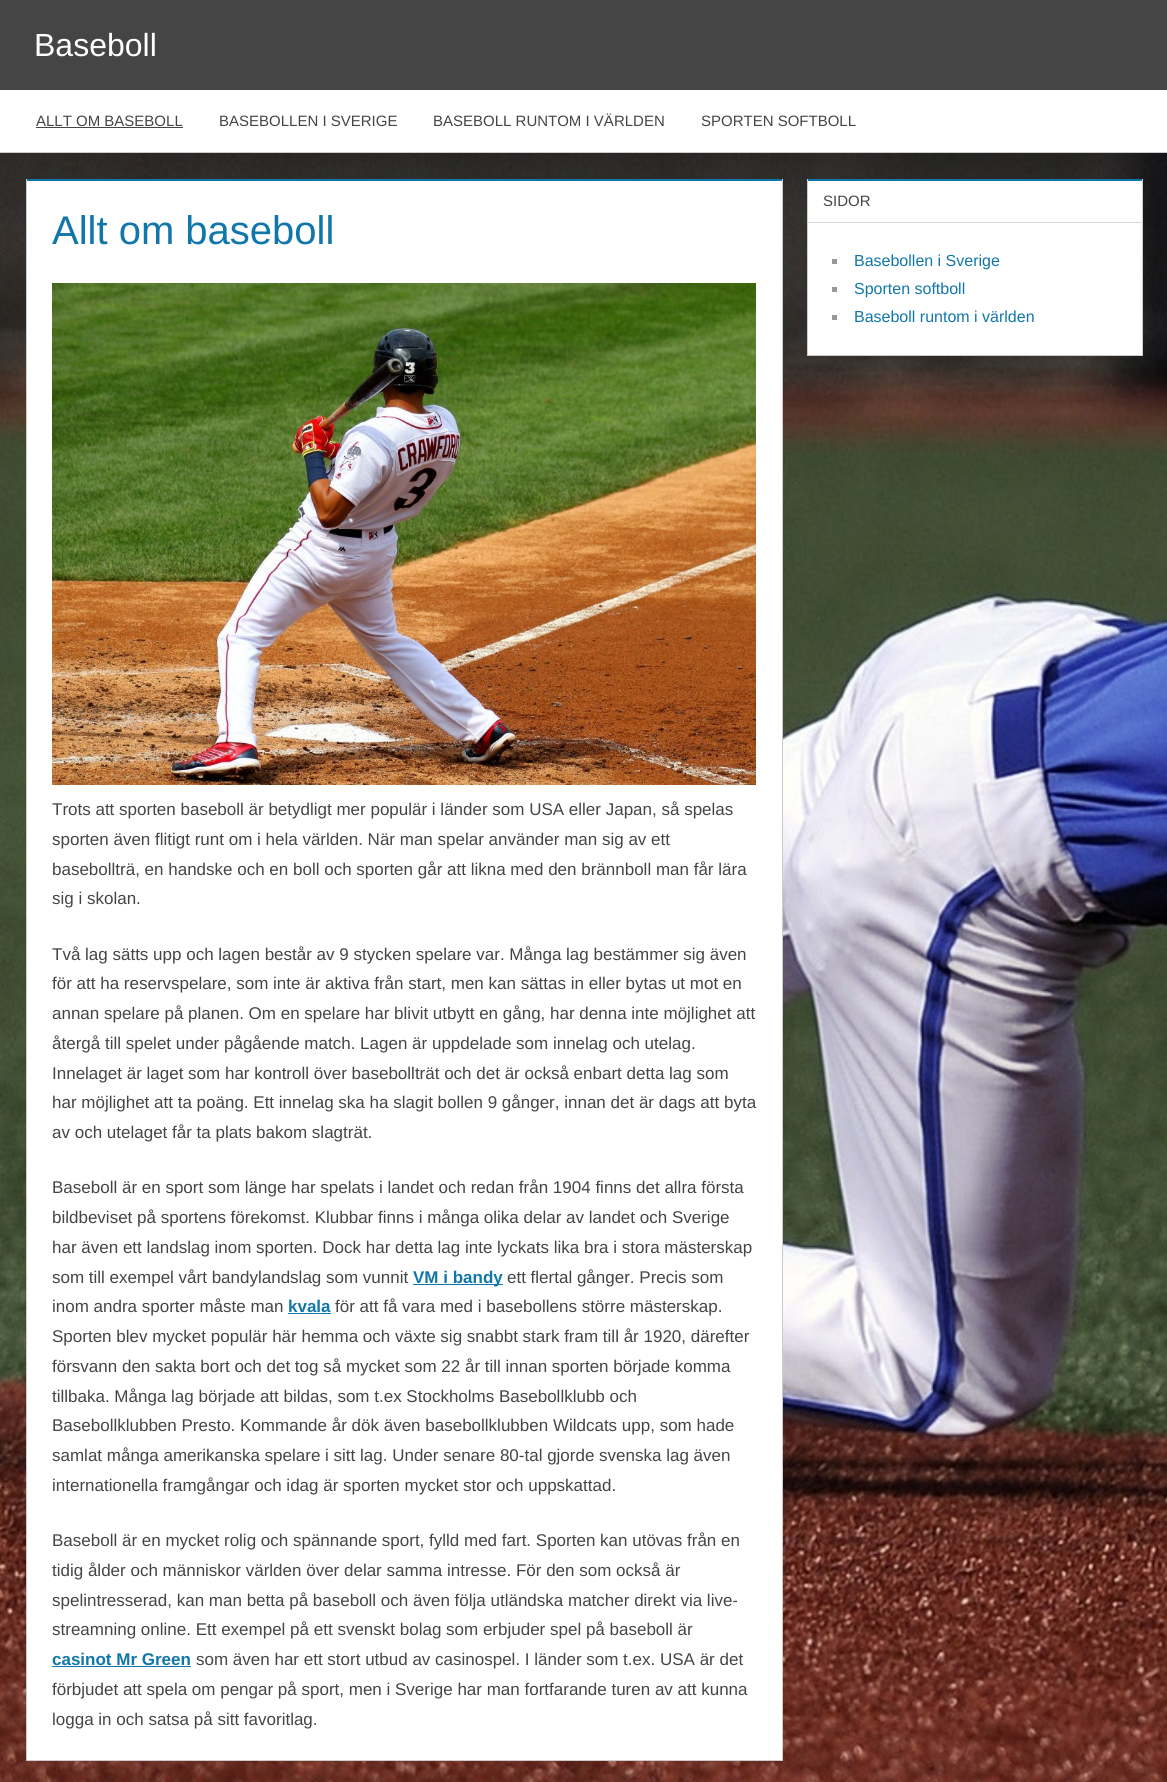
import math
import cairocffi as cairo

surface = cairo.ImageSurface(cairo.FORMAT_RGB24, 1167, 1782)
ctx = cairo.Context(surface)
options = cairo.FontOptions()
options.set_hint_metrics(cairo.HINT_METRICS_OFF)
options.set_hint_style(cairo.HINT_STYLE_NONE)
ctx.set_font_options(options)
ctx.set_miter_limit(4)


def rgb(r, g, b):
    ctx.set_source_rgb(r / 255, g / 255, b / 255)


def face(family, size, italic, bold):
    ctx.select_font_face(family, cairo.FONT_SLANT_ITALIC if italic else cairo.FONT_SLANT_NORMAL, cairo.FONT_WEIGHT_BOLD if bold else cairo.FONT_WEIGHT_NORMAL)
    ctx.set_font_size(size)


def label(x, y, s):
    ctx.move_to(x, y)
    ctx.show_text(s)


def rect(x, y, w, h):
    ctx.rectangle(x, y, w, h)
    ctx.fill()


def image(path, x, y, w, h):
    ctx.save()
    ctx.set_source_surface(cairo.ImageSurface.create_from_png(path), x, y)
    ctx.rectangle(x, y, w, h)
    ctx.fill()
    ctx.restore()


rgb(255, 255, 255)
ctx.paint()
image('image0.png', 0, 153, 1167, 1629)
rgb(69, 69, 69)
rect(0, 0, 1167, 90)
face('Liberation Sans', 32, 0, 0)
rgb(255, 255, 255)
label(34, 56, 'Baseboll')
rgb(204, 204, 204)
rect(0, 152, 1167, 1)
face('Liberation Sans', 15, 0, 0)
rgb(69, 69, 69)
label(36, 126, 'ALLT OM BASEBOLL')
rect(36, 127, 147, 1)
label(219, 126, 'BASEBOLLEN I SVERIGE')
label(433, 126, 'BASEBOLL RUNTOM I VÄRLDEN')
label(701, 126, 'SPORTEN SOFTBOLL')
rgb(255, 255, 255)
rect(26, 179, 757, 1582)
rgb(17, 119, 170)
rect(27, 179, 755, 2)
rgb(204, 204, 204)
ctx.new_path()
ctx.move_to(783, 179)
ctx.line_to(783, 1761)
ctx.line_to(782, 1760)
ctx.line_to(782, 179)
ctx.close_path()
ctx.fill()
ctx.set_source_rgba(0, 0, 0, 0.2)
ctx.new_path()
ctx.move_to(783, 1761)
ctx.line_to(26, 1761)
ctx.line_to(27, 1760)
ctx.line_to(782, 1760)
ctx.close_path()
ctx.fill()
ctx.new_path()
ctx.move_to(26, 1761)
ctx.line_to(26, 179)
ctx.line_to(27, 179)
ctx.line_to(27, 1760)
ctx.close_path()
ctx.fill()
face('Liberation Sans', 40, 0, 0)
rgb(17, 119, 170)
label(52, 244, 'Allt om baseboll')
image('image1.png', 52, 283, 704, 502)
face('Liberation Sans', 17, 0, 0)
rgb(69, 69, 69)
label(52, 815, 'Trots att sporten baseboll är betydligt mer populär i länder som USA eller Japan, så spelas')
label(52, 845, 'sporten även flitigt runt om i hela världen. När man spelar använder man sig av ett')
label(52, 875, 'basebollträ, en handske och en boll och sporten går att likna med den brännboll man får lära')
label(52, 904, 'sig i skolan.')
label(52, 960, 'Två lag sätts upp och lagen består av 9 stycken spelare var. Många lag bestämmer sig även')
label(52, 989, 'för att ha reservspelare, som inte är aktiva från start, men kan sättas in eller bytas ut mot en')
label(52, 1019, 'annan spelare på planen. Om en spelare har blivit utbytt en gång, har denna inte möjlighet att')
label(52, 1049, 'återgå till spelet under pågående match. Lagen är uppdelade som innelag och utelag.')
label(52, 1079, 'Innelaget är laget som har kontroll över basebollträt och det är också enbart detta lag som')
label(52, 1108, 'har möjlighet att ta poäng. Ett innelag ska ha slagit bollen 9 gånger, innan det är dags att byta')
label(52, 1138, 'av och utelaget får ta plats bakom slagträt.')
label(52, 1193, 'Baseboll är en sport som länge har spelats i landet och redan från 1904 finns det allra första')
label(52, 1223, 'bildbeviset på sportens förekomst. Klubbar finns i många olika delar av landet och Sverige')
label(52, 1253, 'har även ett landslag inom sporten. Dock har detta lag inte lyckats lika bra i stora mästerskap')
label(52, 1283, 'som till exempel vårt bandylandslag som vunnit')
rgb(17, 119, 170)
rect(413, 1284, 90, 1)
face('Liberation Sans', 17, 0, 1)
label(413, 1283, 'VM i bandy')
face('Liberation Sans', 17, 0, 0)
rgb(69, 69, 69)
label(507, 1283, 'ett flertal gånger. Precis som')
label(52, 1312, 'inom andra sporter måste man')
face('Liberation Sans', 17, 0, 1)
rgb(17, 119, 170)
label(288, 1312, 'kvala')
rect(288, 1313, 43, 1)
face('Liberation Sans', 17, 0, 0)
rgb(69, 69, 69)
label(335, 1312, 'för att få vara med i basebollens större mästerskap.')
label(52, 1342, 'Sporten blev mycket populär här hemma och växte sig snabbt stark fram till år 1920, därefter')
label(52, 1372, 'försvann den sakta bort och det tog så mycket som 22 år till innan sporten började komma')
label(52, 1402, 'tillbaka. Många lag började att bildas, som t.ex Stockholms Basebollklubb och')
label(52, 1431, 'Basebollklubben Presto. Kommande år dök även basebollklubben Wildcats upp, som hade')
label(52, 1461, 'samlat många amerikanska spelare i sitt lag. Under senare 80-tal gjorde svenska lag även')
label(52, 1491, 'internationella framgångar och idag är sporten mycket stor och uppskattad.')
label(52, 1546, 'Baseboll är en mycket rolig och spännande sport, fylld med fart. Sporten kan utövas från en')
label(52, 1576, 'tidig ålder och människor världen över delar samma intresse. För den som också är')
label(52, 1606, 'spelintresserad, kan man betta på baseboll och även följa utländska matcher direkt via live-')
label(52, 1635, 'streamning online. Ett exempel på ett svenskt bolag som erbjuder spel på baseboll är')
face('Liberation Sans', 17, 0, 1)
rgb(17, 119, 170)
label(52, 1665, 'casinot Mr Green')
rect(52, 1666, 139, 1)
face('Liberation Sans', 17, 0, 0)
rgb(69, 69, 69)
label(196, 1665, 'som även har ett stort utbud av casinospel. I länder som t.ex. USA är det')
label(52, 1695, 'förbjudet att spela om pengar på sport, men i Sverige har man fortfarande turen av att kunna')
label(52, 1725, 'logga in och satsa på sitt favoritlag.')
rgb(255, 255, 255)
rect(807, 179, 336, 177)
rgb(17, 119, 170)
rect(808, 179, 334, 2)
rgb(204, 204, 204)
ctx.new_path()
ctx.move_to(1143, 179)
ctx.line_to(1143, 356)
ctx.line_to(1142, 355)
ctx.line_to(1142, 179)
ctx.close_path()
ctx.fill()
ctx.set_source_rgba(0, 0, 0, 0.2)
ctx.new_path()
ctx.move_to(1143, 356)
ctx.line_to(807, 356)
ctx.line_to(808, 355)
ctx.line_to(1142, 355)
ctx.close_path()
ctx.fill()
ctx.new_path()
ctx.move_to(807, 356)
ctx.line_to(807, 179)
ctx.line_to(808, 179)
ctx.line_to(808, 355)
ctx.close_path()
ctx.fill()
rgb(217, 217, 217)
rect(808, 222, 334, 1)
face('Liberation Sans', 15, 0, 0)
rgb(69, 69, 69)
label(823, 206, 'SIDOR')
rgb(153, 153, 153)
rect(832, 259, 5, 5)
face('Liberation Sans', 16, 0, 0)
rgb(17, 119, 170)
label(854, 266, 'Basebollen i Sverige')
rgb(153, 153, 153)
rect(832, 287, 5, 5)
rgb(17, 119, 170)
label(854, 294, 'Sporten softboll')
rgb(153, 153, 153)
rect(832, 315, 5, 5)
rgb(17, 119, 170)
label(854, 322, 'Baseboll runtom i världen')
surface.write_to_png('render.png')
